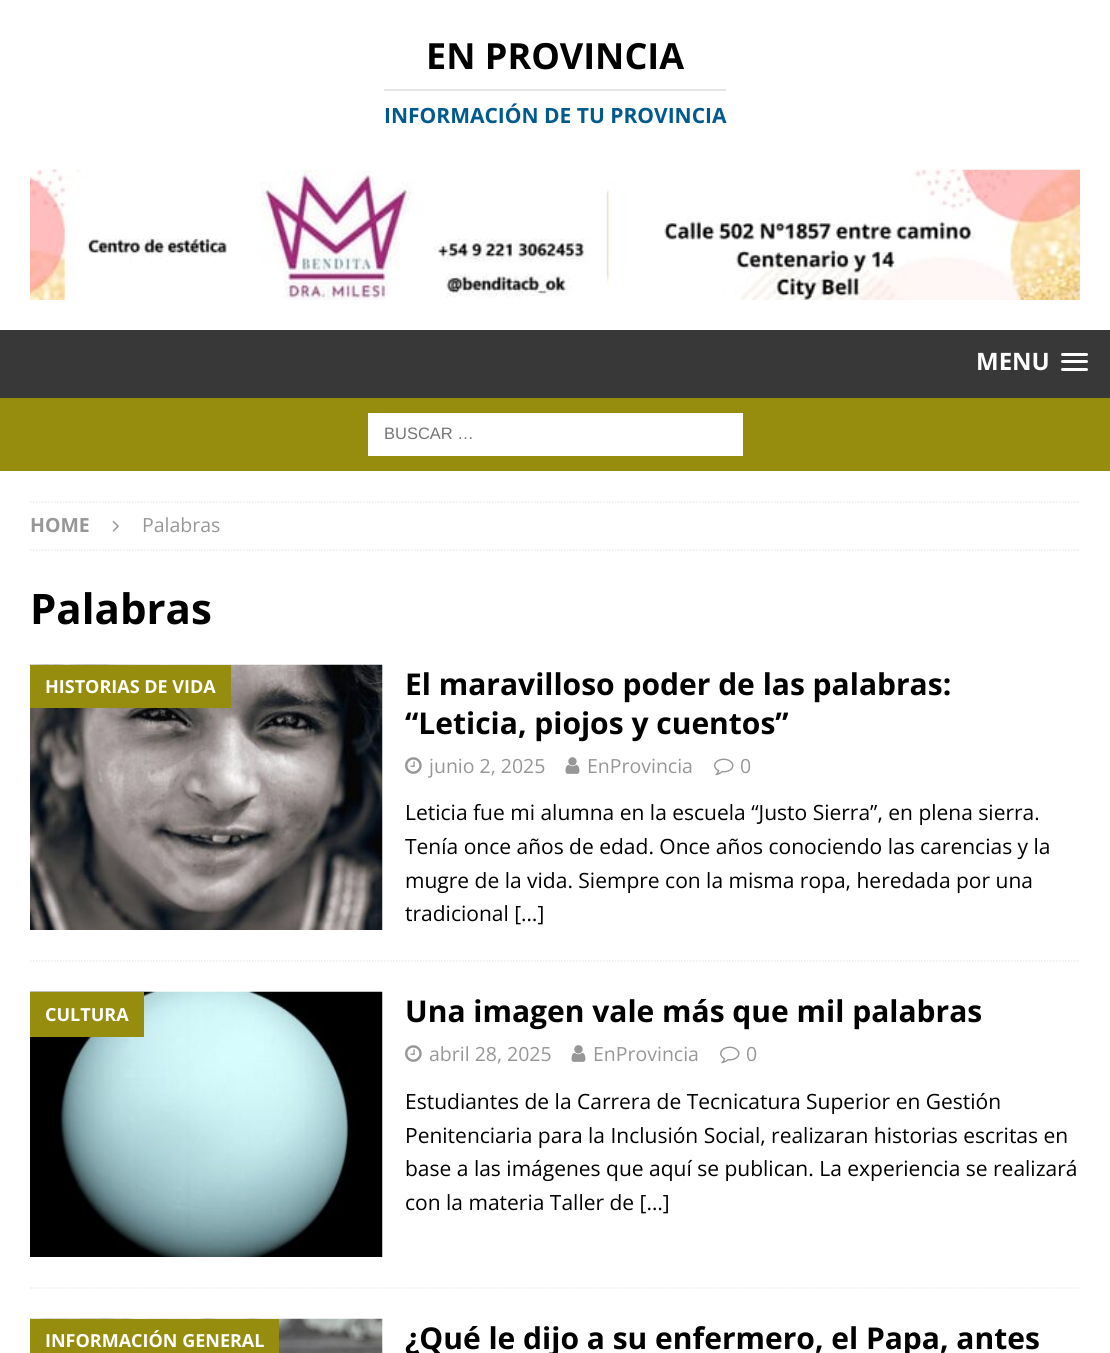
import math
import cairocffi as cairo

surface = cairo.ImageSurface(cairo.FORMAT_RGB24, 1110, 1353)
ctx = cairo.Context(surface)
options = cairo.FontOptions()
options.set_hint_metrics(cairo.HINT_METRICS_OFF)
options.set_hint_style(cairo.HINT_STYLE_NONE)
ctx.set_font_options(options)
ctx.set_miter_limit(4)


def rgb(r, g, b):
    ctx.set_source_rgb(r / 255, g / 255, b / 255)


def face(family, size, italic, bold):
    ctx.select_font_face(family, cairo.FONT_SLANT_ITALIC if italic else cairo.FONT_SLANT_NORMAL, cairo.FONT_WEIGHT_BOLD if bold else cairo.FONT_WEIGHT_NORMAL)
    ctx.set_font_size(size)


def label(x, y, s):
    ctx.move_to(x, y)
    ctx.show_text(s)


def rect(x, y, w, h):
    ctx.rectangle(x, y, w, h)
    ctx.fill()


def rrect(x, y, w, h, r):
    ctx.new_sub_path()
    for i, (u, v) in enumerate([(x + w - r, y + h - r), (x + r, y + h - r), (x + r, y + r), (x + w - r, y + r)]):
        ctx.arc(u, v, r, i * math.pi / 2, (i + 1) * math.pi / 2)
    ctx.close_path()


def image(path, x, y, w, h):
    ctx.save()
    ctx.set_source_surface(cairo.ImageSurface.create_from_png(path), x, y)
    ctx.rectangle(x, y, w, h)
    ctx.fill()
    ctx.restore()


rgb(255, 255, 255)
ctx.paint()
face('Open Sans', 36, 0, 1)
rgb(0, 0, 0)
label(426, 69, 'EN PROVINCIA')
rgb(229, 229, 229)
rect(384, 89, 342, 2)
face('Open Sans', 21, 0, 1)
rgb(0, 90, 140)
label(384, 123, 'INFORMACIÓN DE TU PROVINCIA')
image('image0.png', 30, 169, 1050, 131)
rgb(56, 56, 56)
rect(0, 330, 1110, 68)
face('Open Sans', 24, 0, 1)
rgb(255, 255, 255)
label(976, 370, 'MENU')
rrect(1061, 353, 27, 3, 1.5)
ctx.fill()
rrect(1061, 360, 27, 3, 1.5)
ctx.fill()
rrect(1061, 368, 27, 3, 1.5)
ctx.fill()
rgb(150, 141, 15)
rect(0, 398, 1110, 73)
rgb(255, 255, 255)
rect(368, 413, 375, 43)
face('Liberation Sans', 16.5, 0, 0)
rgb(117, 117, 117)
label(384, 439, 'BUSCAR …')
ctx.new_path()
ctx.move_to(30, 502)
ctx.line_to(1080, 502)
rgb(235, 235, 235)
ctx.set_line_width(1.5)
ctx.set_dash([1.5, 1.5])
ctx.stroke()
ctx.new_path()
ctx.move_to(30, 550)
ctx.line_to(1080, 550)
ctx.stroke()
face('Open Sans', 19.5, 0, 1)
rgb(151, 151, 151)
label(30, 532, 'HOME')
image('image1.png', 112, 520, 7, 12)
face('Open Sans', 19.5, 0, 0)
label(142, 532, 'Palabras')
face('Open Sans', 42, 0, 1)
rgb(0, 0, 0)
label(30, 624, 'Palabras')
ctx.new_path()
ctx.move_to(30, 961)
ctx.line_to(1080, 961)
rgb(235, 235, 235)
ctx.stroke()
image('image2.png', 30, 664, 353, 266)
rgb(150, 141, 15)
rect(30, 665, 201, 43)
face('Open Sans', 18, 0, 1)
rgb(255, 255, 255)
label(45, 693, 'HISTORIAS DE VIDA')
face('Open Sans', 30, 0, 1)
rgb(0, 0, 0)
label(405, 695, 'El maravilloso poder de las palabras:')
label(405, 734, '“Leticia, piojos y cuentos”')
image('image3.png', 405, 757, 17, 17)
face('Open Sans', 19.5, 0, 0)
rgb(151, 151, 151)
label(429, 773, 'junio 2, 2025')
image('image4.png', 565, 757, 15, 17)
label(587, 773, 'EnProvincia')
image('image5.png', 714, 758, 20, 18)
label(740, 773, '0')
face('Open Sans', 21, 0, 0)
rgb(0, 0, 0)
label(405, 820, 'Leticia fue mi alumna en la escuela “Justo Sierra”, en plena sierra.')
label(405, 854, 'Tenía once años de edad. Once años conociendo las carencias y la')
label(405, 888, 'mugre de la vida. Siempre con la misma ropa, heredada por una')
label(405, 921, 'tradicional […]')
ctx.new_path()
ctx.move_to(30, 1288)
ctx.line_to(1080, 1288)
rgb(235, 235, 235)
ctx.stroke()
image('image6.png', 30, 991, 353, 266)
rgb(150, 141, 15)
rect(30, 992, 114, 45)
face('Open Sans', 18, 0, 1)
rgb(255, 255, 255)
label(45, 1021, 'CULTURA')
face('Open Sans', 30, 0, 1)
rgb(0, 0, 0)
label(405, 1022, 'Una imagen vale más que mil palabras')
image('image3.png', 405, 1045, 17, 17)
face('Open Sans', 19.5, 0, 0)
rgb(151, 151, 151)
label(429, 1061, 'abril 28, 2025')
image('image4.png', 571, 1045, 15, 17)
label(593, 1061, 'EnProvincia')
image('image5.png', 720, 1046, 20, 18)
label(746, 1061, '0')
face('Open Sans', 21, 0, 0)
rgb(0, 0, 0)
label(405, 1109, 'Estudiantes de la Carrera de Tecnicatura Superior en Gestión')
label(405, 1143, 'Penitenciaria para la Inclusión Social, realizaran historias escritas en')
label(405, 1176, 'base a las imágenes que aquí se publican. La experiencia se realizará')
label(405, 1210, 'con la materia Taller de […]')
image('image7.png', 30, 1318, 353, 35)
rgb(150, 141, 15)
rect(30, 1319, 249, 34)
face('Open Sans', 18, 0, 1)
rgb(255, 255, 255)
label(45, 1347, 'INFORMACIÓN GENERAL')
face('Open Sans', 30, 0, 1)
rgb(0, 0, 0)
label(405, 1349, '¿Qué le dijo a su enfermero, el Papa, antes')
surface.write_to_png('render.png')
